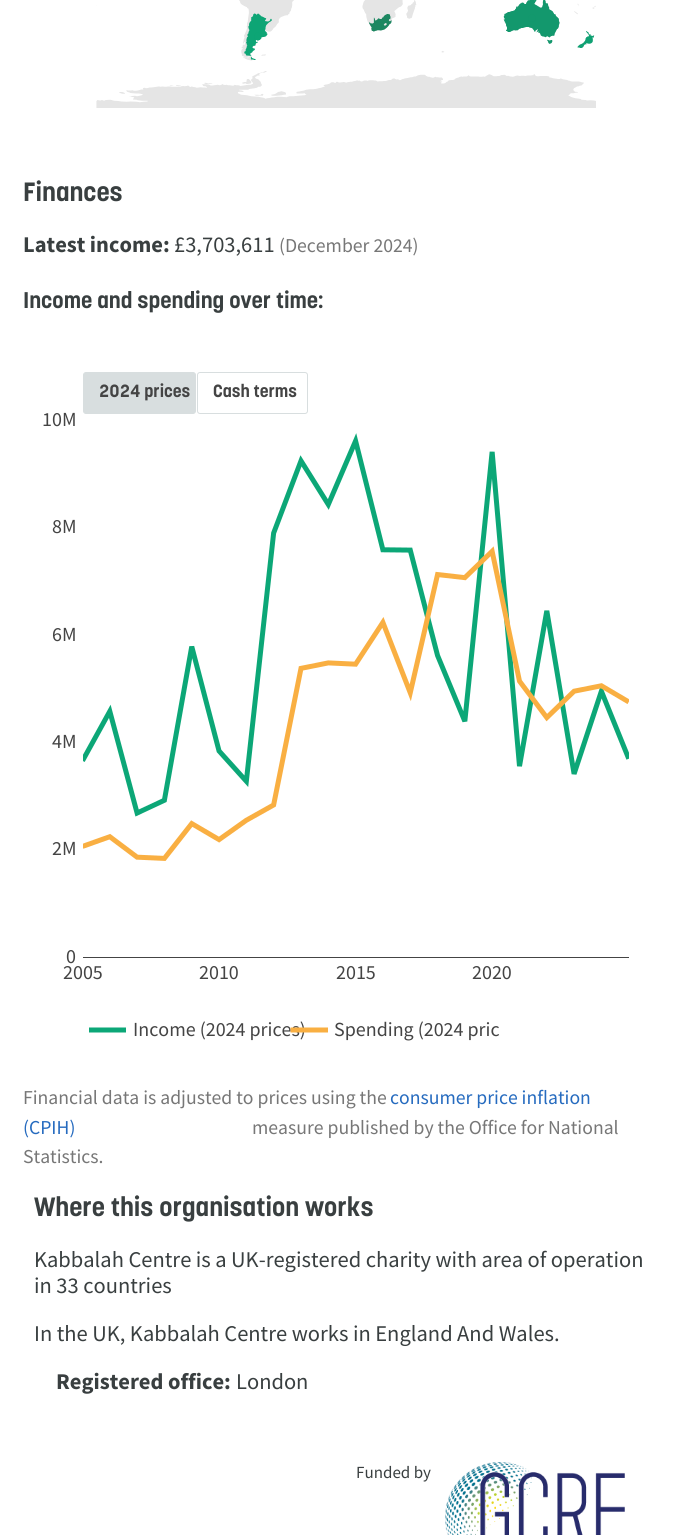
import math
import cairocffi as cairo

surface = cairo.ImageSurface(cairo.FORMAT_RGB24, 692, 1535)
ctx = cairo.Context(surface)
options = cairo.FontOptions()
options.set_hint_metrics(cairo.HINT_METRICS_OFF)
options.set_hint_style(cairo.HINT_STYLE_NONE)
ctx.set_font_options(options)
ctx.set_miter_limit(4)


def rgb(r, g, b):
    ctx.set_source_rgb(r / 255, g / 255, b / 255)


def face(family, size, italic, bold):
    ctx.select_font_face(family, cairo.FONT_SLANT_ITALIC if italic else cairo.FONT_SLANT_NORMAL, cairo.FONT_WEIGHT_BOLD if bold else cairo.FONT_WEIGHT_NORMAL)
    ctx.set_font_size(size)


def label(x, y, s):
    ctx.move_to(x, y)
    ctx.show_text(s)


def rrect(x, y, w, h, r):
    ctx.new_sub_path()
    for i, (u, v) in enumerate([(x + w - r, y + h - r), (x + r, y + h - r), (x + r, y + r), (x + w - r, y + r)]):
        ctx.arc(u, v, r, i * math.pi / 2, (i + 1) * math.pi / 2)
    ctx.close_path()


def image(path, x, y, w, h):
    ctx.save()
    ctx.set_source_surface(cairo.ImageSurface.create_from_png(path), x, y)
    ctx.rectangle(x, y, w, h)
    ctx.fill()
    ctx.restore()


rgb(255, 255, 255)
ctx.paint()
image('image0.png', 96, 0, 500, 108)
face('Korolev', 26.25, 0, 1)
rgb(57, 63, 64)
label(23, 201, 'Finances')
face('Source Sans Pro', 22.5, 0, 1)
label(23, 252, 'Latest income:')
face('Source Sans Pro', 22.5, 0, 0)
label(174, 252, '£3,703,611')
face('Source Sans Pro', 19.7, 0, 0)
rgb(119, 119, 119)
label(279, 252, '(December 2024)')
face('Korolev', 22.5, 0, 1)
rgb(57, 63, 64)
label(23, 308, 'Income and spending over time:')
ctx.new_path()
ctx.move_to(89, 1030)
ctx.line_to(126, 1030)
rgb(12, 167, 119)
ctx.set_line_width(5)
ctx.stroke()
face('Source Sans Pro', 20, 0, 0)
rgb(68, 68, 68)
label(133, 1036, 'Income (2024 prices)')
ctx.new_path()
ctx.move_to(290.5, 1030)
ctx.line_to(328, 1030)
rgb(249, 175, 66)
ctx.stroke()
rgb(216, 222, 223)
rrect(83.5, 372.5, 112, 41, 2.5)
ctx.fill_preserve()
ctx.set_line_width(1)
ctx.stroke()
rrect(197.5, 372.5, 110, 41, 2.5)
ctx.stroke()
face('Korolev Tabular', 17.5, 0, 1)
rgb(68, 68, 68)
label(99, 397, '2024 prices')
face('Korolev', 17.5, 0, 1)
label(213, 397, 'Cash terms')
face('Source Sans Pro', 20, 0, 0)
label(334, 1036, 'Spending (2024 pric')
image('image1.png', 83, 433, 546, 525)
label(42, 426, '10M')
label(52, 533, '8M')
label(52, 641, '6M')
label(52, 748, '4M')
label(52, 855, '2M')
label(66, 963, '0')
label(63, 979, '2005')
label(199, 979, '2010')
label(336, 979, '2015')
label(472, 979, '2020')
face('Source Sans Pro', 19.7, 0, 0)
rgb(119, 119, 119)
label(23, 1104, 'Financial data is adjusted to prices using the')
rgb(38, 107, 191)
label(390, 1104, 'consumer price inflation')
label(23, 1134, '(CPIH)')
rgb(119, 119, 119)
label(252, 1134, 'measure published by the Office for National')
label(23, 1163, 'Statistics.')
face('Korolev', 26.25, 0, 1)
rgb(57, 63, 64)
label(34, 1216, 'Where this organisation works')
face('Source Sans Pro', 22.5, 0, 0)
label(34, 1267, 'Kabbalah Centre is a UK-registered charity with area of operation')
label(34, 1293, 'in 33 countries')
label(34, 1341, 'In the UK, Kabbalah Centre works in England And Wales.')
face('Source Sans Pro', 22.5, 0, 1)
label(56, 1389, 'Registered office:')
face('Source Sans Pro', 22.5, 0, 0)
label(236, 1389, 'London')
face('Source Sans Pro', 17, 0, 0)
label(356, 1478, 'Funded by')
image('image2.png', 445, 1462, 180, 73)
surface.write_to_png('render.png')
